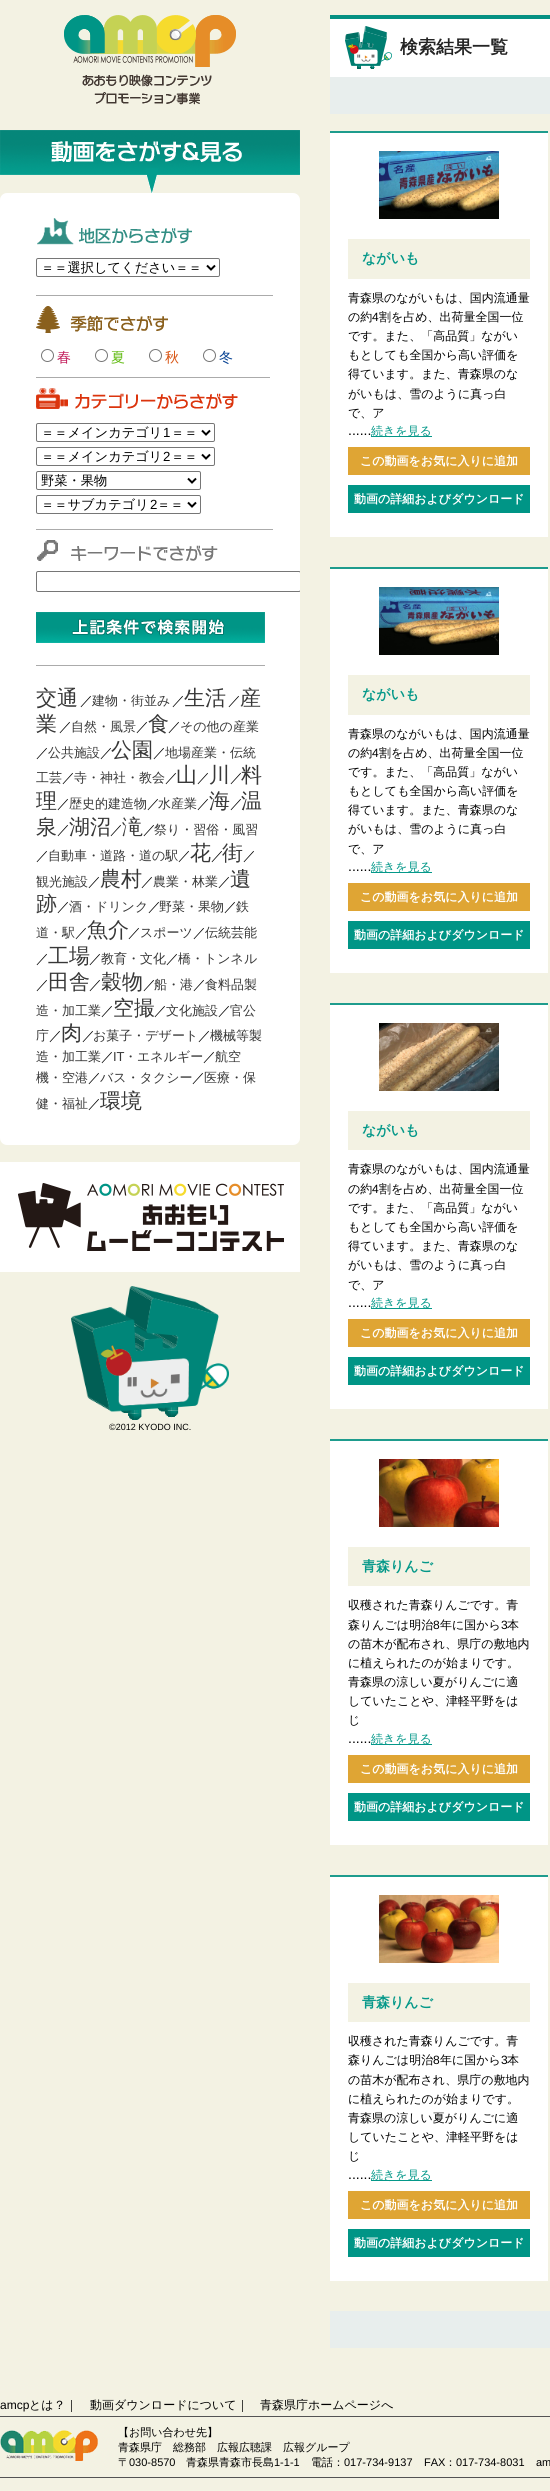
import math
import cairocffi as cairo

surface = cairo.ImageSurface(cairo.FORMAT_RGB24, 550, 2491)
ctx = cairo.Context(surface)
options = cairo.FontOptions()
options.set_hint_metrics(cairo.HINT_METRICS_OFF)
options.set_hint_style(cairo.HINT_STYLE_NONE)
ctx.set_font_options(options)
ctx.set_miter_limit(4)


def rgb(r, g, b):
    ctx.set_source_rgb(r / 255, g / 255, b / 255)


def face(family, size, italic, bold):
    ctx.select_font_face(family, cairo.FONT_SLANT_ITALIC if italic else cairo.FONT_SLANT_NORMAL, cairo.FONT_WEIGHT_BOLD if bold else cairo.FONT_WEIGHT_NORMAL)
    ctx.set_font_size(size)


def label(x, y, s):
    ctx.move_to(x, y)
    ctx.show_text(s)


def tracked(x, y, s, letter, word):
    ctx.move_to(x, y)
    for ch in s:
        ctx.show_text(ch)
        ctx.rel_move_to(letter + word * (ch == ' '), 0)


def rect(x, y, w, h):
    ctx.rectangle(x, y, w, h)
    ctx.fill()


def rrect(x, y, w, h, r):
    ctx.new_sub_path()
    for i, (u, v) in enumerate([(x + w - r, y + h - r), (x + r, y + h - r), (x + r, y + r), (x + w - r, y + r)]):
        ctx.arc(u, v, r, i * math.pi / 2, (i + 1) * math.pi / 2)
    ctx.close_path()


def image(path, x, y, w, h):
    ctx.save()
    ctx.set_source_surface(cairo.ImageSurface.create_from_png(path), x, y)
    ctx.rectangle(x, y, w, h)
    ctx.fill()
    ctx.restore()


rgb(243, 242, 227)
ctx.paint()
image('image0.png', 64, 15, 172, 90)
image('image1.png', 0, 130, 300, 63)
rgb(255, 255, 255)
rrect(0, 193, 300, 952, 7)
ctx.fill()
image('image2.png', 37, 218, 155, 27)
rrect(36.5, 258.5, 183, 18, 1.5)
rgb(118, 118, 118)
ctx.set_line_width(1)
ctx.stroke()
ctx.new_path()
ctx.move_to(207, 265.5)
ctx.line_to(211, 269.5)
ctx.line_to(215, 265.5)
rgb(0, 0, 0)
ctx.set_line_width(2)
ctx.stroke()
face('WenQuanYi Zen Hei Medium', 13.25, 0, 0)
label(41, 272, '＝＝選択してください＝＝')
image('image3.png', 36, 306, 132, 27)
rgb(171, 171, 171)
rect(36, 295, 237, 1)
ctx.arc(47.5, 355.5, 6, 0, 2 * math.pi)
rgb(118, 118, 118)
ctx.set_line_width(1)
ctx.stroke()
face('WenQuanYi Zen Hei Medium', 14, 0, 0)
rgb(194, 27, 90)
label(57, 362, '春')
ctx.new_path()
ctx.arc(101.5, 355.5, 6, 0, 2 * math.pi)
rgb(118, 118, 118)
ctx.stroke()
rgb(101, 188, 24)
label(111, 362, '夏')
ctx.new_path()
ctx.arc(155.5, 355.5, 6, 0, 2 * math.pi)
rgb(118, 118, 118)
ctx.stroke()
rgb(216, 84, 19)
label(165, 362, '秋')
ctx.new_path()
ctx.arc(209.5, 355.5, 6, 0, 2 * math.pi)
rgb(118, 118, 118)
ctx.stroke()
rgb(8, 67, 148)
label(219, 362, '冬')
image('image4.png', 36, 388, 202, 21)
rgb(171, 171, 171)
rect(36, 377, 234, 1)
rrect(36.5, 423.5, 178, 18, 1.5)
rgb(118, 118, 118)
ctx.stroke()
ctx.new_path()
ctx.move_to(202, 430.5)
ctx.line_to(206, 434.5)
ctx.line_to(210, 430.5)
rgb(0, 0, 0)
ctx.set_line_width(2)
ctx.stroke()
face('WenQuanYi Zen Hei Medium', 13.25, 0, 0)
label(41, 437, '＝＝メインカテゴリ')
face('Liberation Sans', 13.25, 0, 0)
label(163, 437, '1')
face('WenQuanYi Zen Hei Medium', 13.25, 0, 0)
label(171, 437, '＝＝')
rrect(36.5, 447.5, 178, 18, 1.5)
rgb(118, 118, 118)
ctx.set_line_width(1)
ctx.stroke()
ctx.new_path()
ctx.move_to(202, 454.5)
ctx.line_to(206, 458.5)
ctx.line_to(210, 454.5)
rgb(0, 0, 0)
ctx.set_line_width(2)
ctx.stroke()
label(41, 461, '＝＝メインカテゴリ')
face('Liberation Sans', 13.25, 0, 0)
label(163, 461, '2')
face('WenQuanYi Zen Hei Medium', 13.25, 0, 0)
label(171, 461, '＝＝')
rrect(36.5, 471.5, 164, 18, 1.5)
rgb(118, 118, 118)
ctx.set_line_width(1)
ctx.stroke()
ctx.new_path()
ctx.move_to(188, 478.5)
ctx.line_to(192, 482.5)
ctx.line_to(196, 478.5)
rgb(0, 0, 0)
ctx.set_line_width(2)
ctx.stroke()
label(41, 485, '野菜・果物')
rrect(36.5, 495.5, 164, 18, 1.5)
rgb(118, 118, 118)
ctx.set_line_width(1)
ctx.stroke()
ctx.new_path()
ctx.move_to(188, 502.5)
ctx.line_to(192, 506.5)
ctx.line_to(196, 502.5)
rgb(0, 0, 0)
ctx.set_line_width(2)
ctx.stroke()
label(41, 509, '＝＝サブカテゴリ')
face('Liberation Sans', 13.25, 0, 0)
label(150, 509, '2')
face('WenQuanYi Zen Hei Medium', 13.25, 0, 0)
label(157, 509, '＝＝')
image('image5.png', 37, 540, 181, 21)
rgb(171, 171, 171)
rect(36, 529, 237, 1)
ctx.save()
ctx.rectangle(0, 15, 300, 1417)
ctx.clip()
rrect(36.5, 571.5, 264, 20, 1.5)
rgb(118, 118, 118)
ctx.set_line_width(1)
ctx.stroke()
ctx.restore()
image('image6.png', 36, 612, 229, 31)
rect(36, 665, 229, 1)
face('WenQuanYi Zen Hei Medium', 21, 0, 0)
rgb(55, 55, 55)
label(36, 705, '交通')
face('WenQuanYi Zen Hei Medium', 13, 0, 0)
rgb(0, 0, 0)
tracked(80, 705, '／', -1, 0)
rgb(55, 55, 55)
label(92, 705, '建物・街並み')
rgb(0, 0, 0)
tracked(172, 705, '／', -1, 0)
face('WenQuanYi Zen Hei Medium', 21, 0, 0)
rgb(55, 55, 55)
label(184, 705, '生活')
face('WenQuanYi Zen Hei Medium', 13, 0, 0)
rgb(0, 0, 0)
tracked(228, 705, '／', -1, 0)
face('WenQuanYi Zen Hei Medium', 21, 0, 0)
rgb(55, 55, 55)
label(240, 705, '産')
label(36, 731, '業')
face('WenQuanYi Zen Hei Medium', 13, 0, 0)
rgb(0, 0, 0)
tracked(59, 731, '／', -1, 0)
rgb(55, 55, 55)
label(71, 731, '自然・風景')
rgb(0, 0, 0)
tracked(136, 731, '／', -1, 0)
face('WenQuanYi Zen Hei Medium', 21, 0, 0)
rgb(55, 55, 55)
label(148, 731, '食')
face('WenQuanYi Zen Hei Medium', 13, 0, 0)
rgb(0, 0, 0)
tracked(168, 731, '／', -1, 0)
rgb(55, 55, 55)
label(180, 731, 'その他の産業')
rgb(0, 0, 0)
tracked(36, 757, '／', -1, 0)
rgb(55, 55, 55)
label(48, 757, '公共施設')
rgb(0, 0, 0)
tracked(100, 757, '／', -1, 0)
face('WenQuanYi Zen Hei Medium', 21, 0, 0)
rgb(55, 55, 55)
label(111, 757, '公園')
face('WenQuanYi Zen Hei Medium', 13, 0, 0)
rgb(0, 0, 0)
tracked(153, 757, '／', -1, 0)
rgb(55, 55, 55)
label(165, 757, '地場産業・伝統')
label(36, 782, '工芸')
rgb(0, 0, 0)
tracked(62, 782, '／', -1, 0)
rgb(55, 55, 55)
label(74, 782, '寺・神社・教会')
rgb(0, 0, 0)
tracked(165, 782, '／', -1, 0)
face('WenQuanYi Zen Hei Medium', 21, 0, 0)
rgb(55, 55, 55)
label(176, 782, '山')
face('WenQuanYi Zen Hei Medium', 13, 0, 0)
rgb(0, 0, 0)
tracked(197, 782, '／', -1, 0)
face('WenQuanYi Zen Hei Medium', 21, 0, 0)
rgb(55, 55, 55)
label(209, 782, '川')
face('WenQuanYi Zen Hei Medium', 13, 0, 0)
rgb(0, 0, 0)
tracked(230, 782, '／', -1, 0)
face('WenQuanYi Zen Hei Medium', 21, 0, 0)
rgb(55, 55, 55)
label(241, 782, '料')
label(36, 808, '理')
face('WenQuanYi Zen Hei Medium', 13, 0, 0)
rgb(0, 0, 0)
tracked(57, 808, '／', -1, 0)
rgb(55, 55, 55)
label(69, 808, '歴史的建造物')
rgb(0, 0, 0)
tracked(147, 808, '／', -1, 0)
rgb(55, 55, 55)
label(158, 808, '水産業')
rgb(0, 0, 0)
tracked(197, 808, '／', -1, 0)
face('WenQuanYi Zen Hei Medium', 21, 0, 0)
rgb(55, 55, 55)
label(209, 808, '海')
face('WenQuanYi Zen Hei Medium', 13, 0, 0)
rgb(0, 0, 0)
tracked(230, 808, '／', -1, 0)
face('WenQuanYi Zen Hei Medium', 21, 0, 0)
rgb(55, 55, 55)
label(241, 808, '温')
label(36, 834, '泉')
face('WenQuanYi Zen Hei Medium', 13, 0, 0)
rgb(0, 0, 0)
tracked(57, 834, '／', -1, 0)
face('WenQuanYi Zen Hei Medium', 21, 0, 0)
rgb(55, 55, 55)
label(69, 834, '湖沼')
face('WenQuanYi Zen Hei Medium', 13, 0, 0)
rgb(0, 0, 0)
tracked(110, 834, '／', -1, 0)
face('WenQuanYi Zen Hei Medium', 21, 0, 0)
rgb(55, 55, 55)
label(122, 834, '滝')
face('WenQuanYi Zen Hei Medium', 13, 0, 0)
rgb(0, 0, 0)
tracked(143, 834, '／', -1, 0)
rgb(55, 55, 55)
label(154, 834, '祭り・習俗・風習')
rgb(0, 0, 0)
tracked(36, 860, '／', -1, 0)
rgb(55, 55, 55)
label(48, 860, '自動車・道路・道の駅')
rgb(0, 0, 0)
tracked(178, 860, '／', -1, 0)
face('WenQuanYi Zen Hei Medium', 21, 0, 0)
rgb(55, 55, 55)
label(190, 860, '花')
face('WenQuanYi Zen Hei Medium', 13, 0, 0)
rgb(0, 0, 0)
tracked(211, 860, '／', -1, 0)
face('WenQuanYi Zen Hei Medium', 21, 0, 0)
rgb(55, 55, 55)
label(222, 860, '街')
face('WenQuanYi Zen Hei Medium', 13, 0, 0)
rgb(0, 0, 0)
tracked(243, 860, '／', -1, 0)
rgb(55, 55, 55)
label(36, 886, '観光施設')
rgb(0, 0, 0)
tracked(88, 886, '／', -1, 0)
face('WenQuanYi Zen Hei Medium', 21, 0, 0)
rgb(55, 55, 55)
label(100, 886, '農村')
face('WenQuanYi Zen Hei Medium', 13, 0, 0)
rgb(0, 0, 0)
tracked(141, 886, '／', -1, 0)
rgb(55, 55, 55)
label(153, 886, '農業・林業')
rgb(0, 0, 0)
tracked(218, 886, '／', -1, 0)
face('WenQuanYi Zen Hei Medium', 21, 0, 0)
rgb(55, 55, 55)
label(230, 886, '遺')
label(36, 911, '跡')
face('WenQuanYi Zen Hei Medium', 13, 0, 0)
rgb(0, 0, 0)
tracked(57, 911, '／', -1, 0)
rgb(55, 55, 55)
label(69, 911, '酒・ドリンク')
rgb(0, 0, 0)
tracked(148, 911, '／', -1, 0)
rgb(55, 55, 55)
label(159, 911, '野菜・果物')
rgb(0, 0, 0)
tracked(224, 911, '／', -1, 0)
rgb(55, 55, 55)
label(236, 911, '鉄')
label(36, 937, '道・駅')
rgb(0, 0, 0)
tracked(75, 937, '／', -1, 0)
face('WenQuanYi Zen Hei Medium', 21, 0, 0)
rgb(55, 55, 55)
label(87, 937, '魚介')
face('WenQuanYi Zen Hei Medium', 13, 0, 0)
rgb(0, 0, 0)
tracked(128, 937, '／', -1, 0)
rgb(55, 55, 55)
label(140, 937, 'スポーツ')
rgb(0, 0, 0)
tracked(193, 937, '／', -1, 0)
rgb(55, 55, 55)
label(205, 937, '伝統芸能')
rgb(0, 0, 0)
tracked(36, 963, '／', -1, 0)
face('WenQuanYi Zen Hei Medium', 21, 0, 0)
rgb(55, 55, 55)
label(48, 963, '工場')
face('WenQuanYi Zen Hei Medium', 13, 0, 0)
rgb(0, 0, 0)
tracked(89, 963, '／', -1, 0)
rgb(55, 55, 55)
label(101, 963, '教育・文化')
rgb(0, 0, 0)
tracked(166, 963, '／', -1, 0)
rgb(55, 55, 55)
label(178, 963, '橋・トンネル')
rgb(0, 0, 0)
tracked(36, 989, '／', -1, 0)
face('WenQuanYi Zen Hei Medium', 21, 0, 0)
rgb(55, 55, 55)
label(48, 989, '田舎')
face('WenQuanYi Zen Hei Medium', 13, 0, 0)
rgb(0, 0, 0)
tracked(89, 989, '／', -1, 0)
face('WenQuanYi Zen Hei Medium', 21, 0, 0)
rgb(55, 55, 55)
label(101, 989, '穀物')
face('WenQuanYi Zen Hei Medium', 13, 0, 0)
rgb(0, 0, 0)
tracked(143, 989, '／', -1, 0)
rgb(55, 55, 55)
label(154, 989, '船・港')
rgb(0, 0, 0)
tracked(193, 989, '／', -1, 0)
rgb(55, 55, 55)
label(205, 989, '食料品製')
label(36, 1015, '造・加工業')
rgb(0, 0, 0)
tracked(101, 1015, '／', -1, 0)
face('WenQuanYi Zen Hei Medium', 21, 0, 0)
rgb(55, 55, 55)
label(113, 1015, '空撮')
face('WenQuanYi Zen Hei Medium', 13, 0, 0)
rgb(0, 0, 0)
tracked(154, 1015, '／', -1, 0)
rgb(55, 55, 55)
label(166, 1015, '文化施設')
rgb(0, 0, 0)
tracked(218, 1015, '／', -1, 0)
rgb(55, 55, 55)
label(230, 1015, '官公')
label(36, 1040, '庁')
rgb(0, 0, 0)
tracked(49, 1040, '／', -1, 0)
face('WenQuanYi Zen Hei Medium', 21, 0, 0)
rgb(55, 55, 55)
label(61, 1040, '肉')
face('WenQuanYi Zen Hei Medium', 13, 0, 0)
rgb(0, 0, 0)
tracked(82, 1040, '／', -1, 0)
rgb(55, 55, 55)
label(93, 1040, 'お菓子・デザート')
rgb(0, 0, 0)
tracked(198, 1040, '／', -1, 0)
rgb(55, 55, 55)
label(210, 1040, '機械等製')
label(36, 1061, '造・加工業')
rgb(0, 0, 0)
tracked(101, 1061, '／', -1, 0)
face('Liberation Sans', 13, 0, 0)
rgb(55, 55, 55)
label(113, 1061, 'IT')
face('WenQuanYi Zen Hei Medium', 13, 0, 0)
label(124, 1061, '・エネルギー')
rgb(0, 0, 0)
tracked(203, 1061, '／', -1, 0)
rgb(55, 55, 55)
label(215, 1061, '航空')
label(36, 1082, '機・空港')
rgb(0, 0, 0)
tracked(88, 1082, '／', -1, 0)
rgb(55, 55, 55)
label(100, 1082, 'バス・タクシー')
rgb(0, 0, 0)
tracked(192, 1082, '／', -1, 0)
rgb(55, 55, 55)
label(204, 1082, '医療・保')
label(36, 1108, '健・福祉')
rgb(0, 0, 0)
tracked(88, 1108, '／', -1, 0)
face('WenQuanYi Zen Hei Medium', 21, 0, 0)
rgb(55, 55, 55)
label(100, 1108, '環境')
image('image7.png', 0, 1162, 300, 110)
image('image8.png', 71, 1286, 158, 134)
face('Liberation Sans', 9, 0, 0)
rgb(0, 0, 0)
label(109, 1430, '©2012 KYODO INC.')
rgb(255, 255, 255)
rect(330, 19, 220, 58)
image('image9.png', 345, 26, 47, 43)
rgb(5, 145, 130)
rect(330, 15, 220, 4)
face('WenQuanYi Zen Hei', 18, 0, 1)
rgb(36, 36, 36)
label(400, 53, '検索結果一覧')
rgb(232, 238, 237)
rect(330, 77, 220, 37)
rgb(255, 255, 255)
rect(330, 133, 218, 404)
rgb(30, 156, 141)
rect(330, 131, 218, 2)
image('image10.png', 379, 151, 120, 68)
rgb(243, 242, 227)
rect(348, 239, 182, 40)
face('WenQuanYi Zen Hei', 14, 0, 1)
rgb(4, 152, 137)
label(362, 263, 'ながいも')
face('WenQuanYi Zen Hei Medium', 12, 0, 0)
rgb(0, 0, 0)
label(348, 302, '青森県のながいもは、国内流通量')
label(348, 321, 'の約')
face('Liberation Sans', 12, 0, 0)
label(372, 321, '4')
face('WenQuanYi Zen Hei Medium', 12, 0, 0)
label(379, 321, '割を占め、出荷量全国一位')
label(348, 340, 'です。また、「高品質」ながい')
label(348, 359, 'もとしても全国から高い評価を')
label(348, 378, '得ています。また、青森県のな')
label(348, 398, 'がいもは、雪のように真っ白')
label(348, 417, 'で、ア')
face('Liberation Sans', 14, 0, 0)
label(348, 435, '......')
rgb(4, 152, 137)
rect(371, 436, 61, 1)
face('WenQuanYi Zen Hei Medium', 12, 0, 0)
label(371, 435, '続きを見る')
rgb(223, 165, 52)
rect(348, 447, 182, 28)
face('WenQuanYi Zen Hei', 12, 0, 1)
rgb(255, 255, 255)
label(360, 465, 'この動画をお気に入りに追加')
rgb(0, 149, 134)
rect(348, 485, 182, 28)
rgb(255, 255, 255)
label(354, 503, '動画の詳細およびダウンロード')
rect(330, 569, 218, 404)
rgb(30, 156, 141)
rect(330, 567, 218, 2)
image('image11.png', 379, 587, 120, 68)
rgb(243, 242, 227)
rect(348, 675, 182, 40)
face('WenQuanYi Zen Hei', 14, 0, 1)
rgb(4, 152, 137)
label(362, 699, 'ながいも')
face('WenQuanYi Zen Hei Medium', 12, 0, 0)
rgb(0, 0, 0)
label(348, 738, '青森県のながいもは、国内流通量')
label(348, 757, 'の約')
face('Liberation Sans', 12, 0, 0)
label(372, 757, '4')
face('WenQuanYi Zen Hei Medium', 12, 0, 0)
label(379, 757, '割を占め、出荷量全国一位')
label(348, 776, 'です。また、「高品質」ながい')
label(348, 795, 'もとしても全国から高い評価を')
label(348, 814, '得ています。また、青森県のな')
label(348, 833, 'がいもは、雪のように真っ白')
label(348, 853, 'で、ア')
face('Liberation Sans', 14, 0, 0)
label(348, 871, '......')
rgb(4, 152, 137)
rect(371, 872, 61, 1)
face('WenQuanYi Zen Hei Medium', 12, 0, 0)
label(371, 871, '続きを見る')
rgb(223, 165, 52)
rect(348, 883, 182, 28)
face('WenQuanYi Zen Hei', 12, 0, 1)
rgb(255, 255, 255)
label(360, 901, 'この動画をお気に入りに追加')
rgb(0, 149, 134)
rect(348, 921, 182, 28)
rgb(255, 255, 255)
label(354, 939, '動画の詳細およびダウンロード')
rect(330, 1005, 218, 404)
rgb(30, 156, 141)
rect(330, 1003, 218, 2)
image('image12.png', 379, 1023, 120, 68)
rgb(243, 242, 227)
rect(348, 1111, 182, 39)
face('WenQuanYi Zen Hei', 14, 0, 1)
rgb(4, 152, 137)
label(362, 1135, 'ながいも')
face('WenQuanYi Zen Hei Medium', 12, 0, 0)
rgb(0, 0, 0)
label(348, 1173, '青森県のながいもは、国内流通量')
label(348, 1193, 'の約')
face('Liberation Sans', 12, 0, 0)
label(372, 1193, '4')
face('WenQuanYi Zen Hei Medium', 12, 0, 0)
label(379, 1193, '割を占め、出荷量全国一位')
label(348, 1212, 'です。また、「高品質」ながい')
label(348, 1231, 'もとしても全国から高い評価を')
label(348, 1250, '得ています。また、青森県のな')
label(348, 1269, 'がいもは、雪のように真っ白')
label(348, 1289, 'で、ア')
face('Liberation Sans', 14, 0, 0)
label(348, 1307, '......')
rgb(4, 152, 137)
rect(371, 1308, 61, 1)
face('WenQuanYi Zen Hei Medium', 12, 0, 0)
label(371, 1307, '続きを見る')
rgb(223, 165, 52)
rect(348, 1319, 182, 28)
face('WenQuanYi Zen Hei', 12, 0, 1)
rgb(255, 255, 255)
label(360, 1337, 'この動画をお気に入りに追加')
rgb(0, 149, 134)
rect(348, 1357, 182, 28)
rgb(255, 255, 255)
label(354, 1375, '動画の詳細およびダウンロード')
rect(330, 1441, 218, 404)
rgb(30, 156, 141)
rect(330, 1439, 218, 2)
image('image13.png', 379, 1459, 120, 68)
rgb(243, 242, 227)
rect(348, 1547, 182, 39)
face('WenQuanYi Zen Hei', 14, 0, 1)
rgb(4, 152, 137)
label(362, 1571, '青森りんご')
face('WenQuanYi Zen Hei Medium', 12, 0, 0)
rgb(0, 0, 0)
label(348, 1609, '収穫された青森りんごです。青')
label(348, 1629, '森りんごは明治')
face('Liberation Sans', 12, 0, 0)
label(433, 1629, '8')
face('WenQuanYi Zen Hei Medium', 12, 0, 0)
label(440, 1629, '年に国から')
face('Liberation Sans', 12, 0, 0)
label(501, 1629, '3')
face('WenQuanYi Zen Hei Medium', 12, 0, 0)
label(507, 1629, '本')
label(348, 1648, 'の苗木が配布され、県庁の敷地内')
label(348, 1667, 'に植えられたのが始まりです。')
label(348, 1686, '青森県の涼しい夏がりんごに適')
label(348, 1705, 'していたことや、津軽平野をは')
label(348, 1724, 'じ')
face('Liberation Sans', 14, 0, 0)
label(348, 1743, '......')
rgb(4, 152, 137)
rect(371, 1744, 61, 1)
face('WenQuanYi Zen Hei Medium', 12, 0, 0)
label(371, 1743, '続きを見る')
rgb(223, 165, 52)
rect(348, 1755, 182, 28)
face('WenQuanYi Zen Hei', 12, 0, 1)
rgb(255, 255, 255)
label(360, 1773, 'この動画をお気に入りに追加')
rgb(0, 149, 134)
rect(348, 1793, 182, 28)
rgb(255, 255, 255)
label(354, 1811, '動画の詳細およびダウンロード')
rect(330, 1877, 218, 404)
rgb(30, 156, 141)
rect(330, 1875, 218, 2)
image('image14.png', 379, 1895, 120, 68)
rgb(243, 242, 227)
rect(348, 1983, 182, 39)
face('WenQuanYi Zen Hei', 14, 0, 1)
rgb(4, 152, 137)
label(362, 2007, '青森りんご')
face('WenQuanYi Zen Hei Medium', 12, 0, 0)
rgb(0, 0, 0)
label(348, 2045, '収穫された青森りんごです。青')
label(348, 2064, '森りんごは明治')
face('Liberation Sans', 12, 0, 0)
label(433, 2064, '8')
face('WenQuanYi Zen Hei Medium', 12, 0, 0)
label(440, 2064, '年に国から')
face('Liberation Sans', 12, 0, 0)
label(501, 2064, '3')
face('WenQuanYi Zen Hei Medium', 12, 0, 0)
label(507, 2064, '本')
label(348, 2084, 'の苗木が配布され、県庁の敷地内')
label(348, 2103, 'に植えられたのが始まりです。')
label(348, 2122, '青森県の涼しい夏がりんごに適')
label(348, 2141, 'していたことや、津軽平野をは')
label(348, 2160, 'じ')
face('Liberation Sans', 14, 0, 0)
label(348, 2179, '......')
rgb(4, 152, 137)
rect(371, 2180, 61, 1)
face('WenQuanYi Zen Hei Medium', 12, 0, 0)
label(371, 2179, '続きを見る')
rgb(223, 165, 52)
rect(348, 2191, 182, 28)
face('WenQuanYi Zen Hei', 12, 0, 1)
rgb(255, 255, 255)
label(360, 2209, 'この動画をお気に入りに追加')
rgb(0, 149, 134)
rect(348, 2229, 182, 28)
rgb(255, 255, 255)
label(354, 2247, '動画の詳細およびダウンロード')
rgb(232, 238, 237)
rect(330, 2311, 220, 37)
face('Liberation Sans', 12, 0, 0)
rgb(0, 0, 0)
label(0, 2409, 'amcp')
face('WenQuanYi Zen Hei Medium', 12, 0, 0)
label(29, 2409, 'とは？｜')
label(90, 2409, '動画ダウンロードについて｜')
label(260, 2409, '青森県庁ホームページへ')
rgb(84, 84, 84)
rect(0, 2416, 550, 1)
rect(0, 2477, 550, 1)
image('image15.png', 0, 2430, 98, 31)
face('WenQuanYi Zen Hei Medium', 11, 0, 0)
rgb(0, 0, 0)
label(118, 2436, '【お問い合わせ先】')
label(118, 2451, '青森県庁　総務部　広報広聴課　広報グループ')
label(118, 2466, '〒')
face('Liberation Sans', 11, 0, 0)
label(129, 2466, '030-8570')
face('WenQuanYi Zen Hei Medium', 11, 0, 0)
label(186, 2466, '青森県青森市長島')
face('Liberation Sans', 11, 0, 0)
label(274, 2466, '1-1-1')
face('WenQuanYi Zen Hei Medium', 11, 0, 0)
label(311, 2466, '電話：')
face('Liberation Sans', 11, 0, 0)
label(344, 2466, '017-734-9137')
label(424, 2466, 'FAX')
face('WenQuanYi Zen Hei Medium', 11, 0, 0)
label(445, 2466, '：')
face('Liberation Sans', 11, 0, 0)
label(456, 2466, '017-734-8031')
label(536, 2466, 'am')
surface.write_to_png('render.png')
